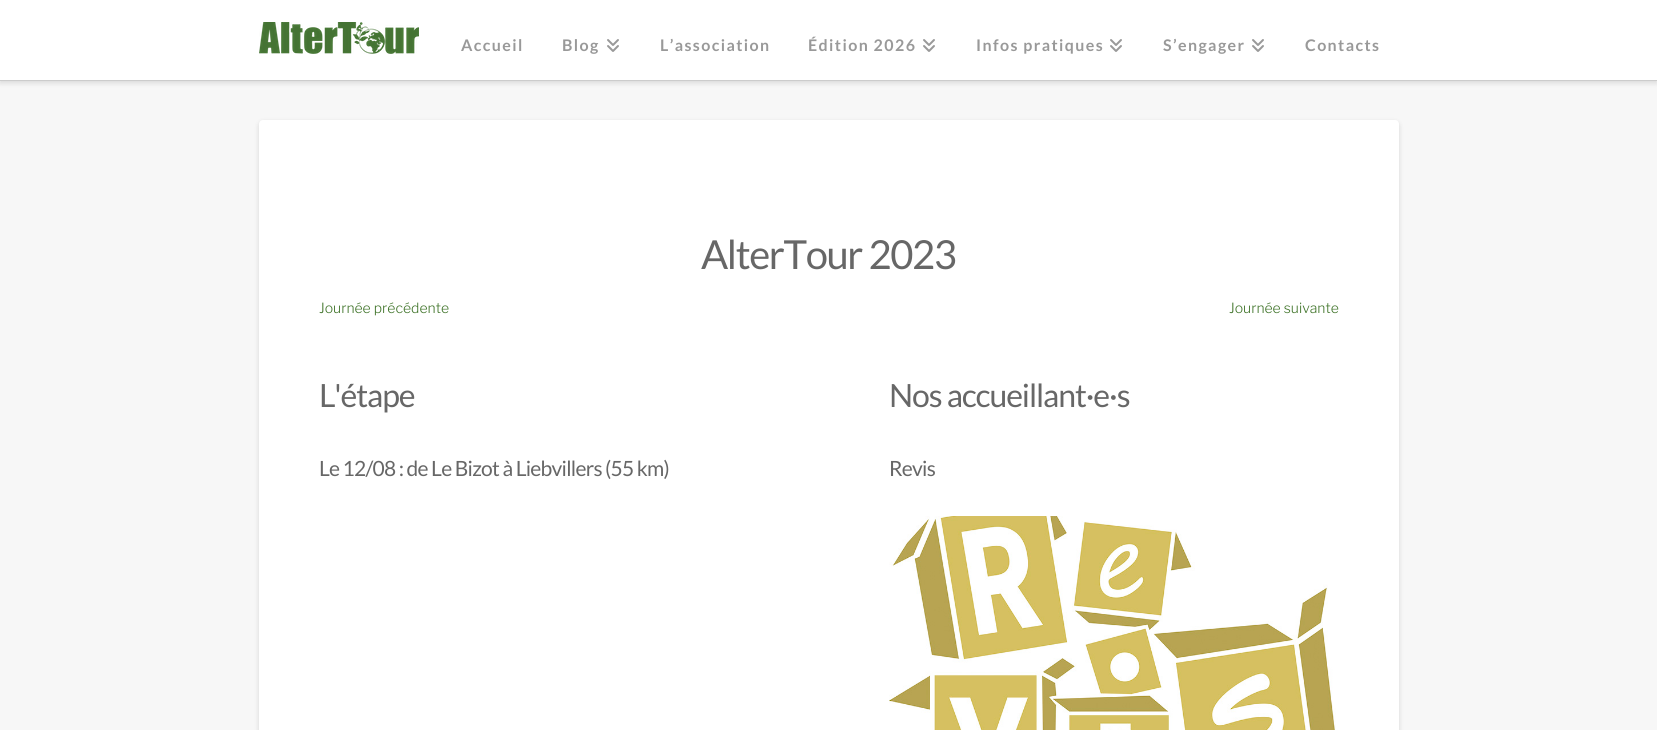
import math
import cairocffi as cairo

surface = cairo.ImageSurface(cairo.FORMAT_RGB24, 1657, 730)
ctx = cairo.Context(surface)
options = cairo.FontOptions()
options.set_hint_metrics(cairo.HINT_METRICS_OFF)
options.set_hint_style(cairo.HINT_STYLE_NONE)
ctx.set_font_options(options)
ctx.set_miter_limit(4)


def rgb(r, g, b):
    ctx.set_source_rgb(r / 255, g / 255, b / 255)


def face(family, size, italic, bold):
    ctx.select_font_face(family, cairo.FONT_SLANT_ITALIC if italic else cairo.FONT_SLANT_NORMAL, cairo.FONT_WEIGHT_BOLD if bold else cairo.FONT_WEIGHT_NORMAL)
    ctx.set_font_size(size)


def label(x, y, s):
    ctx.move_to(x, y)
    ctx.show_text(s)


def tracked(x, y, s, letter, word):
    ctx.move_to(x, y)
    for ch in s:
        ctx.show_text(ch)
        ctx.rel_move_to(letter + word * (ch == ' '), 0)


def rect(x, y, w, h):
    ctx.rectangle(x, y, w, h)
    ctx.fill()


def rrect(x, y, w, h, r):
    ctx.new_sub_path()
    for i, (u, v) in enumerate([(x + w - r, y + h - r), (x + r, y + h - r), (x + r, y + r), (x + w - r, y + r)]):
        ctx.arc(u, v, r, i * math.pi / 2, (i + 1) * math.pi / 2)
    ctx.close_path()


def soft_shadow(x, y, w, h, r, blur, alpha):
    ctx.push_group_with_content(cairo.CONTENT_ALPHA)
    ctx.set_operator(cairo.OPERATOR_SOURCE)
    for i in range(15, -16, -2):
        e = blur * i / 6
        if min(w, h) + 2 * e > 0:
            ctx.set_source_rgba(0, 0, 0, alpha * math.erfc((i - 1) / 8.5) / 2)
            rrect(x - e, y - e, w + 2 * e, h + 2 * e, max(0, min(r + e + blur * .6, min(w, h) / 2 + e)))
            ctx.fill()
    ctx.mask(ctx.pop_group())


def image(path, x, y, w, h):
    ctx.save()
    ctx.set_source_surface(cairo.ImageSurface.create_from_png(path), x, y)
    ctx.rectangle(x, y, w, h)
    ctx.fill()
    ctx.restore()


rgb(247, 247, 247)
ctx.paint()
rgb(0, 0, 0)
soft_shadow(0, 2, 1657, 81, 0, 2.5, 0.13)
rgb(255, 255, 255)
rect(0, 0, 1657, 80)
rgb(204, 204, 204)
rect(0, 80, 1657, 1)
image('image0.png', 259, 22, 160, 32)
face('Lato', 16, 0, 1)
rgb(153, 153, 153)
tracked(461, 51, 'Accueil', 1.4, 0)
tracked(562, 51, 'Blog', 1.4, 0)
image('image1.png', 607, 39, 12, 13)
tracked(660, 51, 'L’association', 1.4, 0)
tracked(808, 51, 'Édition 2026', 1.4, 0)
image('image1.png', 923, 39, 12, 13)
tracked(976, 51, 'Infos pratiques', 1.4, 0)
image('image1.png', 1110, 39, 12, 13)
tracked(1163, 51, 'S’engager', 1.4, 0)
image('image1.png', 1252, 39, 12, 13)
tracked(1305, 51, 'Contacts', 1.4, 0)
rgb(0, 0, 0)
soft_shadow(259, 122, 1140, 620, 4, 2.5, 0.13)
rgb(255, 255, 255)
rrect(259, 120, 1140, 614, 4)
ctx.fill()
face('Lato', 40, 0, 0)
rgb(103, 103, 103)
tracked(701, 269, 'AlterTour 2023', -1.4, 0)
face('Libre Franklin Light', 14, 0, 0)
rgb(65, 117, 43)
label(319, 313, 'Journée précédente')
label(1229, 313, 'Journée suivante')
face('Lato', 32, 0, 0)
rgb(103, 103, 103)
tracked(319, 407, 'L\'étape', -1.1, 0)
face('Lato', 21, 0, 0)
tracked(319, 476, 'Le 12/08 : de Le Bizot à Liebvillers (55 km)', -0.75, 0)
face('Lato', 32, 0, 0)
tracked(889, 407, 'Nos accueillant·e·s', -1.1, 0)
face('Lato', 21, 0, 0)
tracked(889, 476, 'Revis', -0.75, 0)
image('image2.png', 889, 516, 447, 214)
surface.write_to_png('render.png')
